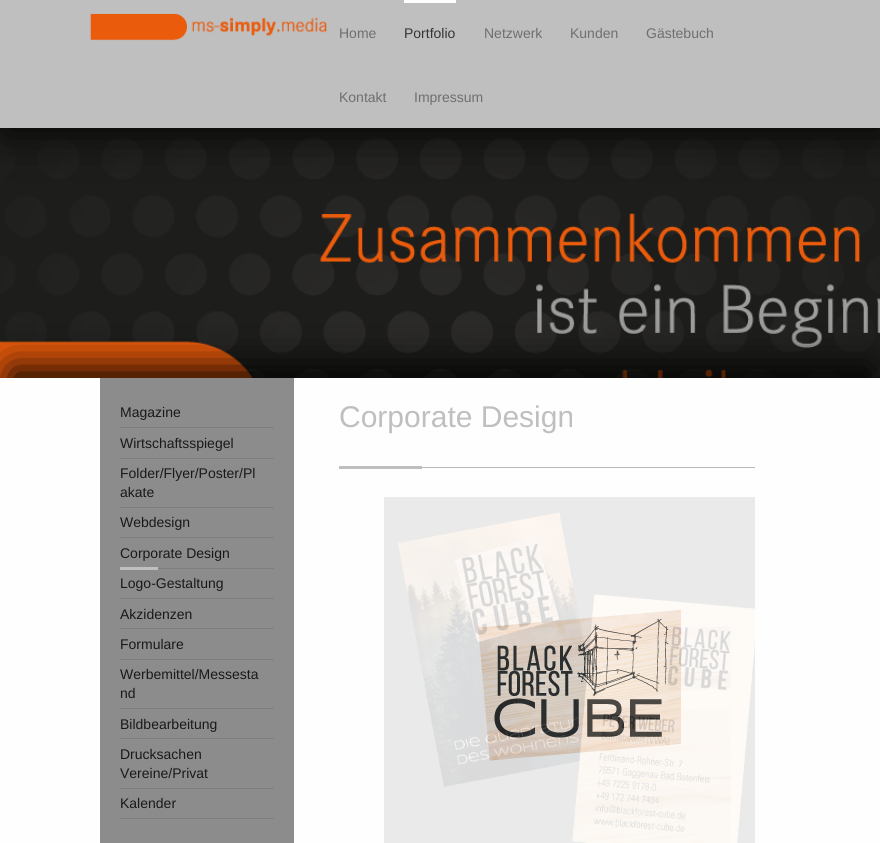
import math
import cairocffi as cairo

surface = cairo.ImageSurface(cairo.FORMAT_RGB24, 880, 843)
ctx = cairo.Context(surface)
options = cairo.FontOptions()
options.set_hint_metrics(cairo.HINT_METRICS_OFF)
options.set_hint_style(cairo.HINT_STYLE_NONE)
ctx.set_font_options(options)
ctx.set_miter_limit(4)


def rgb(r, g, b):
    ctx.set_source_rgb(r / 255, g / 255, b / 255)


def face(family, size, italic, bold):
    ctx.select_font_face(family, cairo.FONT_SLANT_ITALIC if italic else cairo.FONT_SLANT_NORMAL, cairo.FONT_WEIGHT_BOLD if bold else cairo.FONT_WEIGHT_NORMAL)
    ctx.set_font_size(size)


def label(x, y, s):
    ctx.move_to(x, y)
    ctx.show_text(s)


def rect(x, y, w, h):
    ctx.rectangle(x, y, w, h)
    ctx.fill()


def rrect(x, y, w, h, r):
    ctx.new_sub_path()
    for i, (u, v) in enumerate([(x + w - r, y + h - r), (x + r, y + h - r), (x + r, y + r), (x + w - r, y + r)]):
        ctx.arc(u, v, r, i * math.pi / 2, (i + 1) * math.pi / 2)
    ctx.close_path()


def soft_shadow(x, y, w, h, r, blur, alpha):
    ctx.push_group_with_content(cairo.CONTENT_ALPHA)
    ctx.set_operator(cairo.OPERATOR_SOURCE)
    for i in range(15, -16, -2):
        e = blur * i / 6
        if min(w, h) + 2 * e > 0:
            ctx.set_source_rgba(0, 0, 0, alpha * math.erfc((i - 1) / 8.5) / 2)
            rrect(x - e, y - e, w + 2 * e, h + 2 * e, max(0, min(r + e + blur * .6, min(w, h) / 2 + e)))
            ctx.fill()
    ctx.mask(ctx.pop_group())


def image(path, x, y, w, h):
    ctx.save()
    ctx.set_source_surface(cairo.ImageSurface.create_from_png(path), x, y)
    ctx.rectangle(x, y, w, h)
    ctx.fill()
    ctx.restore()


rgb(255, 255, 255)
ctx.paint()
image('image0.png', 0, 128, 880, 250)
rgb(0, 0, 0)
soft_shadow(4, 0, 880, 128, 0, 25, 1)
rgb(191, 191, 191)
rect(0, 0, 880, 128)
image('image1.png', 90, 13, 237, 28)
face('Liberation Sans', 14, 0, 0)
rgb(111, 111, 111)
label(339, 38, 'Home')
rgb(254, 254, 254)
rect(404, 0, 52, 3)
rgb(53, 53, 53)
label(404, 38, 'Portfolio')
rgb(111, 111, 111)
label(484, 38, 'Netzwerk')
label(570, 38, 'Kunden')
label(646, 38, 'Gästebuch')
label(339, 102, 'Kontakt')
label(414, 102, 'Impressum')
rgb(0, 0, 0)
soft_shadow(10, 368, 860, 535, 0, 20, 1)
rgb(254, 254, 254)
rect(0, 378, 880, 465)
rgb(140, 140, 140)
rect(100, 378, 194, 465)
face('Liberation Sans', 30, 0, 0)
rgb(191, 191, 191)
label(339, 427, 'Corporate Design')
rgb(185, 185, 185)
rect(422, 467, 333, 1)
rgb(191, 191, 191)
rect(339, 466, 83, 3)
image('image3.png', 478, 609, 203, 152)
image('image2.png', 384, 497, 371, 346)
rgb(126, 126, 126)
rect(120, 427, 154, 1)
face('Liberation Sans', 14, 0, 0)
rgb(25, 25, 25)
label(120, 417, 'Magazine')
rgb(126, 126, 126)
rect(120, 458, 154, 1)
rgb(25, 25, 25)
label(120, 448, 'Wirtschaftsspiegel')
rgb(126, 126, 126)
rect(120, 507, 154, 1)
rgb(25, 25, 25)
label(120, 478, 'Folder/Flyer/Poster/Pl')
label(120, 497, 'akate')
rgb(126, 126, 126)
rect(120, 537, 154, 1)
rgb(25, 25, 25)
label(120, 527, 'Webdesign')
rgb(126, 126, 126)
rect(158, 568, 116, 1)
rgb(25, 25, 25)
label(120, 558, 'Corporate Design')
rgb(191, 191, 191)
rect(120, 567, 38, 3)
rgb(126, 126, 126)
rect(120, 598, 154, 1)
rgb(25, 25, 25)
label(120, 588, 'Logo-Gestaltung')
rgb(126, 126, 126)
rect(120, 628, 154, 1)
rgb(25, 25, 25)
label(120, 619, 'Akzidenzen')
rgb(126, 126, 126)
rect(120, 659, 154, 1)
rgb(25, 25, 25)
label(120, 649, 'Formulare')
rgb(126, 126, 126)
rect(120, 708, 154, 1)
rgb(25, 25, 25)
label(120, 679, 'Werbemittel/Messesta')
label(120, 698, 'nd')
rgb(126, 126, 126)
rect(120, 738, 154, 1)
rgb(25, 25, 25)
label(120, 729, 'Bildbearbeitung')
rgb(126, 126, 126)
rect(120, 788, 154, 1)
rgb(25, 25, 25)
label(120, 759, 'Drucksachen')
label(120, 778, 'Vereine/Privat')
rgb(126, 126, 126)
rect(120, 818, 154, 1)
rgb(25, 25, 25)
label(120, 808, 'Kalender')
surface.write_to_png('render.png')
